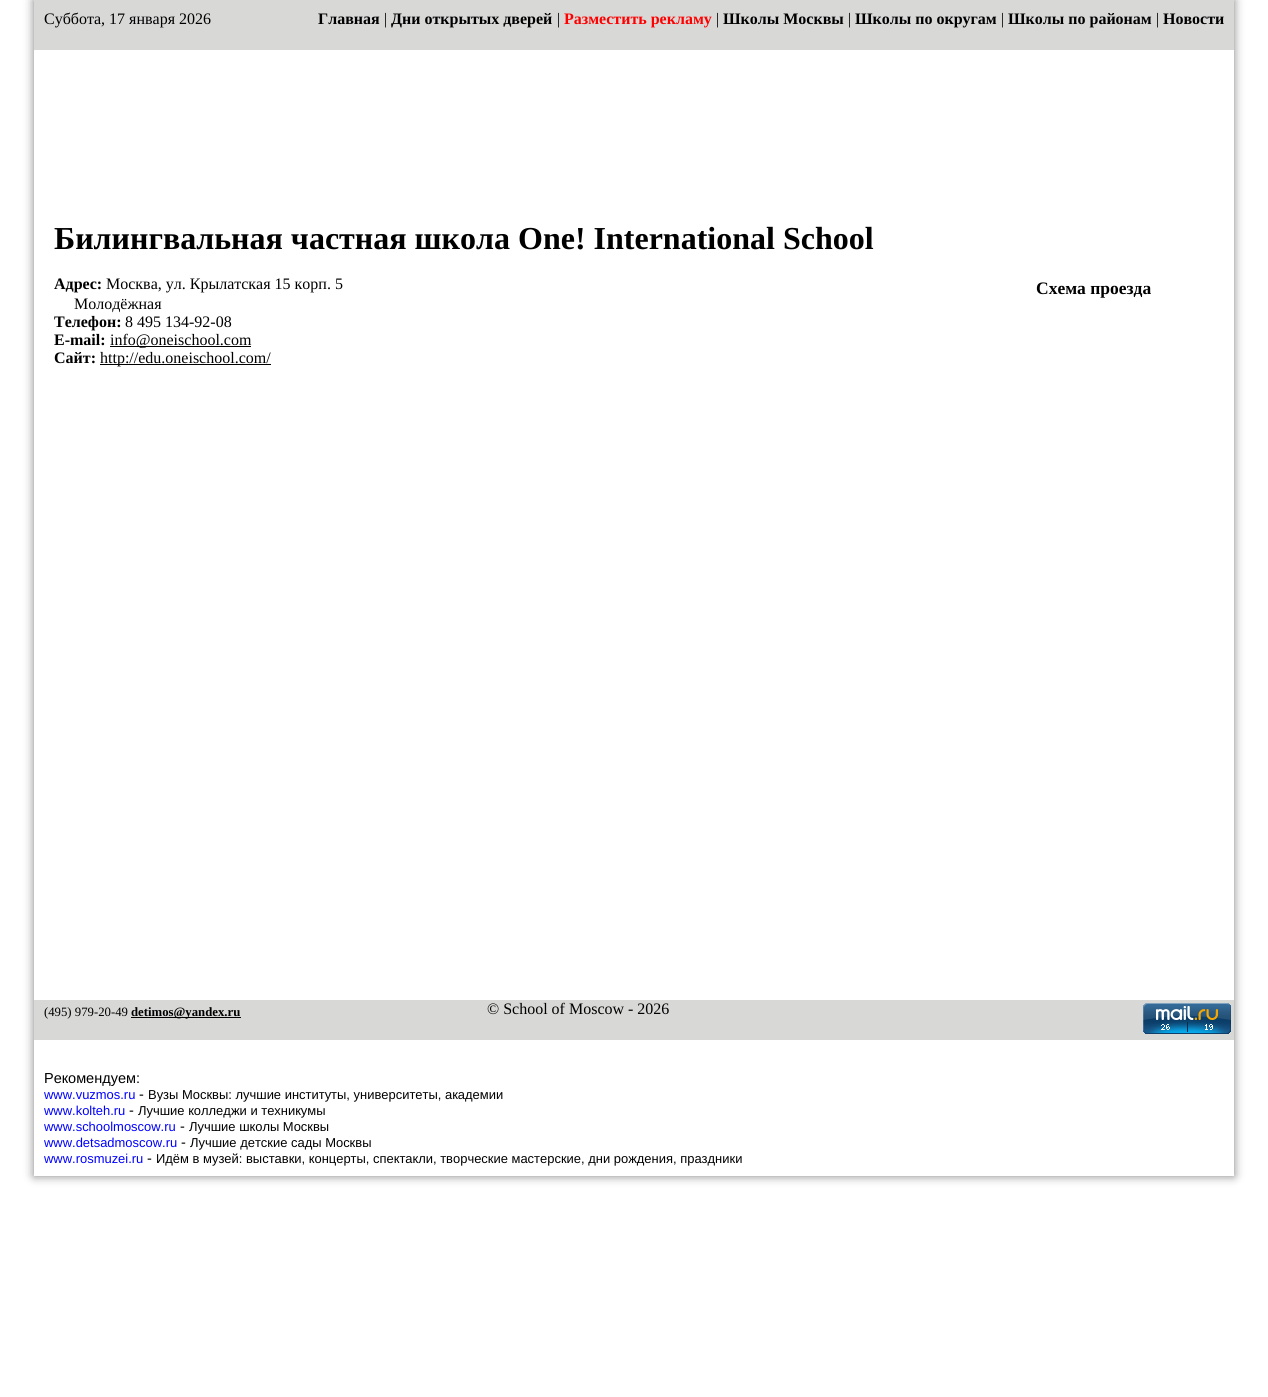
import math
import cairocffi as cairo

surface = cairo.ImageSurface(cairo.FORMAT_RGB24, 1268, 1397)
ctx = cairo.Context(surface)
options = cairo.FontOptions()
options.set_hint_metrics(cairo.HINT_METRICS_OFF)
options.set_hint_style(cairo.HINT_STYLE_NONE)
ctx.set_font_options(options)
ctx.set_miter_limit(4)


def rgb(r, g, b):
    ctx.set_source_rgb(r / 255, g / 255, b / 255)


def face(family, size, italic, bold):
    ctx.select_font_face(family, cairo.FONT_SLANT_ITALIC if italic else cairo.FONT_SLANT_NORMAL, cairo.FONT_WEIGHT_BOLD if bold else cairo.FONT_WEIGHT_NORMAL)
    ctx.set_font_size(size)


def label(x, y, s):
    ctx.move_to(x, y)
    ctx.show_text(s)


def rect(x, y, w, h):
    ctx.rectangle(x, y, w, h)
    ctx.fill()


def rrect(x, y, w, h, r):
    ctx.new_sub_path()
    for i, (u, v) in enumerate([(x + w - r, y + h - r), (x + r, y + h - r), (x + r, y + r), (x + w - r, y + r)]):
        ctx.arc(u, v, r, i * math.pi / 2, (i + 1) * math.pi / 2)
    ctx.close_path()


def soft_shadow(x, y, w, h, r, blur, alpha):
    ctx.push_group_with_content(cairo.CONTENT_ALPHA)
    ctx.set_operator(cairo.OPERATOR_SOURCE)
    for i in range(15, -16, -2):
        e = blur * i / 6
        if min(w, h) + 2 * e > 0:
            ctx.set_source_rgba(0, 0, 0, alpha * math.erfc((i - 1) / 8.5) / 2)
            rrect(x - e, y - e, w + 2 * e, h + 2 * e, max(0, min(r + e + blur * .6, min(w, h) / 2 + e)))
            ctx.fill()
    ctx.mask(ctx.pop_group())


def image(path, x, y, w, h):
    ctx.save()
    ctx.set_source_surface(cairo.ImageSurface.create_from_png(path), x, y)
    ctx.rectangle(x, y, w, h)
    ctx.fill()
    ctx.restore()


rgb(255, 255, 255)
ctx.paint()
ctx.save()
ctx.set_fill_rule(cairo.FILL_RULE_EVEN_ODD)
ctx.new_path()
ctx.move_to(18, 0)
ctx.line_to(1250, 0)
ctx.line_to(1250, 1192)
ctx.line_to(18, 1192)
ctx.close_path()
ctx.move_to(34, 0)
ctx.line_to(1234, 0)
ctx.line_to(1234, 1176)
ctx.line_to(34, 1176)
ctx.close_path()
ctx.clip()
rgb(128, 128, 128)
soft_shadow(34, 0, 1200, 1176, 0, 5, 1)
ctx.restore()
rgb(216, 216, 215)
rect(34, 0, 1200, 50)
face('Liberation Serif', 16, 0, 0)
rgb(0, 0, 0)
label(44, 24, 'Суббота, 17 января 2026')
face('Liberation Serif', 16, 0, 1)
label(318, 24, 'Главная')
face('Liberation Serif', 16, 0, 0)
label(384, 24, '|')
face('Liberation Serif', 16, 0, 1)
label(391, 24, 'Дни открытых дверей')
face('Liberation Serif', 16, 0, 0)
label(557, 24, '|')
face('Liberation Serif', 16, 0, 1)
rgb(255, 0, 0)
label(564, 24, 'Разместить рекламу')
face('Liberation Serif', 16, 0, 0)
rgb(0, 0, 0)
label(716, 24, '|')
face('Liberation Serif', 16, 0, 1)
label(723, 24, 'Школы Москвы')
face('Liberation Serif', 16, 0, 0)
label(848, 24, '|')
face('Liberation Serif', 16, 0, 1)
label(855, 24, 'Школы по округам')
face('Liberation Serif', 16, 0, 0)
label(1001, 24, '|')
face('Liberation Serif', 16, 0, 1)
label(1008, 24, 'Школы по районам')
face('Liberation Serif', 16, 0, 0)
label(1156, 24, '|')
face('Liberation Serif', 16, 0, 1)
label(1163, 24, 'Новости')
face('Liberation Serif', 32, 0, 1)
label(54, 249, 'Билингвальная частная школа One! International School')
face('Liberation Serif', 16, 0, 1)
label(54, 289, 'Адрес:')
face('Liberation Serif', 16, 0, 0)
label(106, 289, 'Москва, ул. Крылатская 15 корп. 5')
label(74, 309, 'Молодёжная')
face('Liberation Serif', 16, 0, 1)
label(54, 327, 'Телефон:')
face('Liberation Serif', 16, 0, 0)
label(125, 327, '8 495 134-92-08')
face('Liberation Serif', 16, 0, 1)
label(54, 345, 'E-mail:')
rect(110, 346, 141, 1)
face('Liberation Serif', 16, 0, 0)
label(110, 345, 'info@oneischool.com')
face('Liberation Serif', 16, 0, 1)
label(54, 363, 'Сайт:')
rect(100, 364, 171, 1)
face('Liberation Serif', 16, 0, 0)
label(100, 363, 'http://edu.oneischool.com/')
face('Liberation Serif', 17.5, 0, 1)
label(1036, 294, 'Схема проезда')
rgb(216, 216, 215)
rect(34, 1000, 1200, 40)
face('Liberation Serif', 12.75, 0, 0)
rgb(0, 0, 0)
label(44, 1016, '(495) 979-20-49')
rect(131, 1017, 110, 1)
face('Liberation Serif', 12.75, 0, 1)
label(131, 1016, 'detimos@yandex.ru')
face('Liberation Serif', 16, 0, 0)
label(487, 1014, '© School of Moscow - 2026')
image('image0.png', 1143, 1003, 88, 31)
face('Liberation Sans', 14.5, 0, 0)
label(44, 1083, 'Рекомендуем:')
face('Liberation Sans', 12.95, 0, 0)
rgb(0, 0, 255)
label(44, 1099, 'www.vuzmos.ru')
face('Liberation Sans', 14.5, 0, 0)
rgb(0, 0, 0)
label(139, 1099, '-')
face('Liberation Sans', 12.95, 0, 0)
label(148, 1099, 'Вузы Москвы: лучшие институты, университеты, академии')
rgb(0, 0, 255)
label(44, 1115, 'www.kolteh.ru')
face('Liberation Sans', 14.5, 0, 0)
rgb(0, 0, 0)
label(129, 1115, '-')
face('Liberation Sans', 12.95, 0, 0)
label(138, 1115, 'Лучшие колледжи и техникумы')
rgb(0, 0, 255)
label(44, 1131, 'www.schoolmoscow.ru')
face('Liberation Sans', 14.5, 0, 0)
rgb(0, 0, 0)
label(180, 1131, '-')
face('Liberation Sans', 12.95, 0, 0)
label(189, 1131, 'Лучшие школы Москвы')
rgb(0, 0, 255)
label(44, 1147, 'www.detsadmoscow.ru')
face('Liberation Sans', 14.5, 0, 0)
rgb(0, 0, 0)
label(181, 1147, '-')
face('Liberation Sans', 12.95, 0, 0)
label(190, 1147, 'Лучшие детские сады Москвы')
rgb(0, 0, 255)
label(44, 1163, 'www.rosmuzei.ru')
face('Liberation Sans', 14.5, 0, 0)
rgb(0, 0, 0)
label(147, 1163, '-')
face('Liberation Sans', 12.95, 0, 0)
label(156, 1163, 'Идём в музей: выставки, концерты, спектакли, творческие мастерские, дни рождения, праздники')
surface.write_to_png('render.png')
